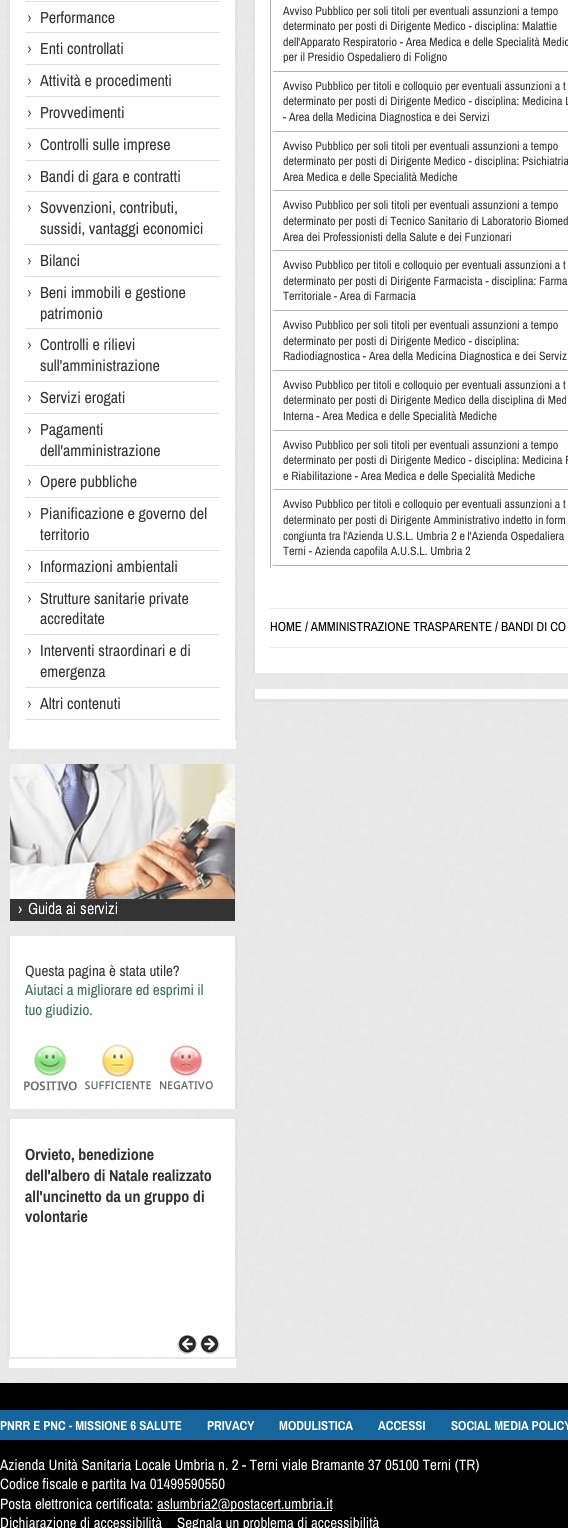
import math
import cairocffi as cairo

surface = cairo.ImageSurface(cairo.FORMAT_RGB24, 568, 1528)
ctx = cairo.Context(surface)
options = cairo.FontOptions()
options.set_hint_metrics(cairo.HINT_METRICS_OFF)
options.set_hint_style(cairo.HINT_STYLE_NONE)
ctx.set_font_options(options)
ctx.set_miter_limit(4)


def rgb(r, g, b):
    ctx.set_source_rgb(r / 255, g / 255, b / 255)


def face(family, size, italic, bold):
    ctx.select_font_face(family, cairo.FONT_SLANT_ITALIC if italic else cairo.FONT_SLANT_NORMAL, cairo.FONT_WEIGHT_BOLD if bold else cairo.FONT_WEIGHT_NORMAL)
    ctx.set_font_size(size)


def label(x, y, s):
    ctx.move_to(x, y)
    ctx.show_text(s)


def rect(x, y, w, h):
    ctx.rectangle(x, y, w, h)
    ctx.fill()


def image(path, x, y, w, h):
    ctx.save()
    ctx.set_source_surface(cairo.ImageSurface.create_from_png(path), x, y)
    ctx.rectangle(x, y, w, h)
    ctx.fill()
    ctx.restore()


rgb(255, 255, 255)
ctx.paint()
image('image0.png', 0, 0, 568, 1383)
image('image1.png', 7, 0, 231, 740)
rgb(221, 221, 221)
rect(25, 1, 195, 1)
image('image2.png', 28, 15, 3, 7)
rect(25, 32, 195, 1)
face('Archivo Narrow', 16, 0, 0)
rgb(51, 51, 51)
label(40, 23, 'Performance')
image('image2.png', 28, 46, 3, 7)
rgb(221, 221, 221)
rect(25, 64, 195, 1)
rgb(51, 51, 51)
label(40, 54, 'Enti controllati')
image('image2.png', 28, 78, 3, 7)
rgb(221, 221, 221)
rect(25, 96, 195, 1)
rgb(51, 51, 51)
label(40, 86, 'Attività e procedimenti')
image('image2.png', 28, 110, 3, 7)
rgb(221, 221, 221)
rect(25, 128, 195, 1)
rgb(51, 51, 51)
label(40, 118, 'Provvedimenti')
image('image2.png', 28, 142, 3, 7)
rgb(221, 221, 221)
rect(25, 160, 195, 1)
rgb(51, 51, 51)
label(40, 150, 'Controlli sulle imprese')
image('image2.png', 28, 174, 3, 7)
rgb(221, 221, 221)
rect(25, 191, 195, 1)
rgb(51, 51, 51)
label(40, 182, 'Bandi di gara e contratti')
image('image2.png', 28, 205, 3, 7)
rgb(221, 221, 221)
rect(25, 244, 195, 1)
rgb(51, 51, 51)
label(40, 213, 'Sovvenzioni, contributi,')
label(40, 234, 'sussidi, vantaggi economici')
image('image2.png', 28, 258, 3, 7)
rgb(221, 221, 221)
rect(25, 276, 195, 1)
rgb(51, 51, 51)
label(40, 266, 'Bilanci')
image('image2.png', 28, 290, 3, 7)
rgb(221, 221, 221)
rect(25, 328, 195, 1)
rgb(51, 51, 51)
label(40, 298, 'Beni immobili e gestione')
label(40, 319, 'patrimonio')
image('image2.png', 28, 342, 3, 7)
rgb(221, 221, 221)
rect(25, 381, 195, 1)
rgb(51, 51, 51)
label(40, 350, 'Controlli e rilievi')
label(40, 371, 'sull\'amministrazione')
image('image2.png', 28, 395, 3, 7)
rgb(221, 221, 221)
rect(25, 413, 195, 1)
rgb(51, 51, 51)
label(40, 403, 'Servizi erogati')
image('image2.png', 28, 427, 3, 7)
rgb(221, 221, 221)
rect(25, 465, 195, 1)
rgb(51, 51, 51)
label(40, 435, 'Pagamenti')
label(40, 456, 'dell\'amministrazione')
image('image2.png', 28, 479, 3, 7)
rgb(221, 221, 221)
rect(25, 497, 195, 1)
rgb(51, 51, 51)
label(40, 487, 'Opere pubbliche')
image('image2.png', 28, 511, 3, 7)
rgb(221, 221, 221)
rect(25, 550, 195, 1)
rgb(51, 51, 51)
label(40, 519, 'Pianificazione e governo del')
label(40, 540, 'territorio')
image('image2.png', 28, 564, 3, 7)
rgb(221, 221, 221)
rect(25, 582, 195, 1)
rgb(51, 51, 51)
label(40, 572, 'Informazioni ambientali')
image('image2.png', 28, 596, 3, 7)
rgb(221, 221, 221)
rect(25, 634, 195, 1)
rgb(51, 51, 51)
label(40, 604, 'Strutture sanitarie private')
label(40, 624, 'accreditate')
image('image2.png', 28, 648, 3, 7)
rgb(221, 221, 221)
rect(25, 687, 195, 1)
rgb(51, 51, 51)
label(40, 656, 'Interventi straordinari e di')
label(40, 677, 'emergenza')
image('image2.png', 28, 701, 3, 7)
rgb(221, 221, 221)
rect(25, 719, 195, 1)
rgb(51, 51, 51)
label(40, 709, 'Altri contenuti')
rgb(255, 255, 255)
rect(9, 740, 227, 9)
image('image3.png', 10, 764, 225, 157)
image('image4.png', 7, 936, 231, 173)
face('Archivo Narrow', 15, 0, 0)
rgb(51, 51, 51)
label(25, 976, 'Questa pagina è stata utile?')
rgb(53, 107, 90)
label(25, 995, 'Aiutaci a migliorare ed esprimi il')
label(25, 1015, 'tuo giudizio.')
image('image5.png', 24, 1045, 53, 46)
image('image6.png', 85, 1044, 66, 46)
image('image7.png', 160, 1045, 53, 45)
image('image8.png', 7, 1119, 231, 238)
face('Archivo Narrow', 16, 0, 1)
rgb(51, 51, 51)
label(25, 1160, 'Orvieto, benedizione')
label(25, 1181, 'dell\'albero di Natale realizzato')
label(25, 1202, 'all\'uncinetto da un gruppo di')
label(25, 1222, 'volontarie')
image('image9.png', 177, 1334, 20, 20)
image('image10.png', 200, 1334, 20, 20)
rgb(255, 255, 255)
rect(9, 1359, 227, 9)
image('image11.png', 252, 0, 316, 673)
rgb(177, 177, 177)
rect(270, 0, 1, 568)
rect(273, 71, 295, 1)
face('Archivo Narrow', 12, 0, 0)
rgb(51, 51, 51)
label(283, 15, 'Avviso Pubblico per soli titoli per eventuali assunzioni a tempo')
label(283, 30, 'determinato per posti di Dirigente Medico - disciplina: Malattie')
label(283, 46, 'dell\'Apparato Respiratorio - Area Medica e delle Specialità Medic')
label(283, 61, 'per il Presidio Ospedaliero di Foligno')
rgb(177, 177, 177)
rect(273, 131, 295, 1)
rgb(51, 51, 51)
label(283, 90, 'Avviso Pubblico per titoli e colloquio per eventuali assunzioni a t')
label(283, 105, 'determinato per posti di Dirigente Medico - disciplina: Medicina L')
label(283, 121, '- Area della Medicina Diagnostica e dei Servizi')
rgb(177, 177, 177)
rect(273, 190, 295, 1)
rgb(51, 51, 51)
label(283, 150, 'Avviso Pubblico per soli titoli per eventuali assunzioni a tempo')
label(283, 165, 'determinato per posti di Dirigente Medico - disciplina: Psichiatria')
label(283, 181, 'Area Medica e delle Specialità Mediche')
rgb(177, 177, 177)
rect(273, 250, 295, 1)
rgb(51, 51, 51)
label(283, 209, 'Avviso Pubblico per soli titoli per eventuali assunzioni a tempo')
label(283, 225, 'determinato per posti di Tecnico Sanitario di Laboratorio Biomed')
label(283, 241, 'Area dei Professionisti della Salute e dei Funzionari')
rgb(177, 177, 177)
rect(273, 310, 295, 1)
rgb(51, 51, 51)
label(283, 269, 'Avviso Pubblico per titoli e colloquio per eventuali assunzioni a t')
label(283, 285, 'determinato per posti di Dirigente Farmacista - disciplina: Farma')
label(283, 300, 'Territoriale - Area di Farmacia')
rgb(177, 177, 177)
rect(273, 370, 295, 1)
rgb(51, 51, 51)
label(283, 329, 'Avviso Pubblico per soli titoli per eventuali assunzioni a tempo')
label(283, 345, 'determinato per posti di Dirigente Medico - disciplina:')
label(283, 360, 'Radiodiagnostica - Area della Medicina Diagnostica e dei Serviz')
rgb(177, 177, 177)
rect(273, 430, 295, 1)
rgb(51, 51, 51)
label(283, 389, 'Avviso Pubblico per titoli e colloquio per eventuali assunzioni a t')
label(283, 404, 'determinato per posti di Dirigente Medico della disciplina di Med')
label(283, 420, 'Interna - Area Medica e delle Specialità Mediche')
rgb(177, 177, 177)
rect(273, 489, 295, 1)
rgb(51, 51, 51)
label(283, 449, 'Avviso Pubblico per soli titoli per eventuali assunzioni a tempo')
label(283, 464, 'determinato per posti di Dirigente Medico - disciplina: Medicina F')
label(283, 480, 'e Riabilitazione - Area Medica e delle Specialità Mediche')
rgb(177, 177, 177)
rect(273, 565, 295, 1)
rgb(51, 51, 51)
label(283, 508, 'Avviso Pubblico per titoli e colloquio per eventuali assunzioni a t')
label(283, 524, 'determinato per posti di Dirigente Amministrativo indetto in form')
label(283, 540, 'congiunta tra l\'Azienda U.S.L. Umbria 2 e l\'Azienda Ospedaliera')
label(283, 555, 'Terni - Azienda capofila A.U.S.L. Umbria 2')
rgb(235, 235, 235)
rect(270, 608, 298, 1)
face('Archivo Narrow', 13, 0, 0)
rgb(0, 0, 0)
label(270, 631, 'HOME / AMMINISTRAZIONE TRASPARENTE / BANDI DI CO')
rgb(235, 235, 235)
rect(270, 647, 298, 1)
image('image12.png', 252, 689, 316, 13)
rgb(0, 0, 0)
rect(0, 1383, 568, 145)
rgb(22, 101, 156)
rect(0, 1410, 568, 30)
face('Archivo Narrow', 13, 0, 1)
rgb(255, 255, 255)
label(0, 1430, 'PNRR E PNC - MISSIONE 6 SALUTE')
label(207, 1430, 'PRIVACY')
label(279, 1430, 'MODULISTICA')
label(378, 1430, 'ACCESSI')
label(451, 1430, 'SOCIAL MEDIA POLICY')
face('Archivo Narrow', 15, 0, 0)
label(0, 1470, 'Azienda Unità Sanitaria Locale Umbria n. 2 - Terni viale Bramante 37 05100 Terni (TR)')
label(0, 1489, 'Codice fiscale e partita Iva 01499590550')
label(0, 1509, 'Posta elettronica certificata:')
rect(157, 1510, 175, 1)
label(157, 1509, 'aslumbria2@postacert.umbria.it')
label(0, 1528, 'Dichiarazione di accessibilità')
label(177, 1528, 'Segnala un problema di accessibilità')
surface.write_to_png('render.png')
